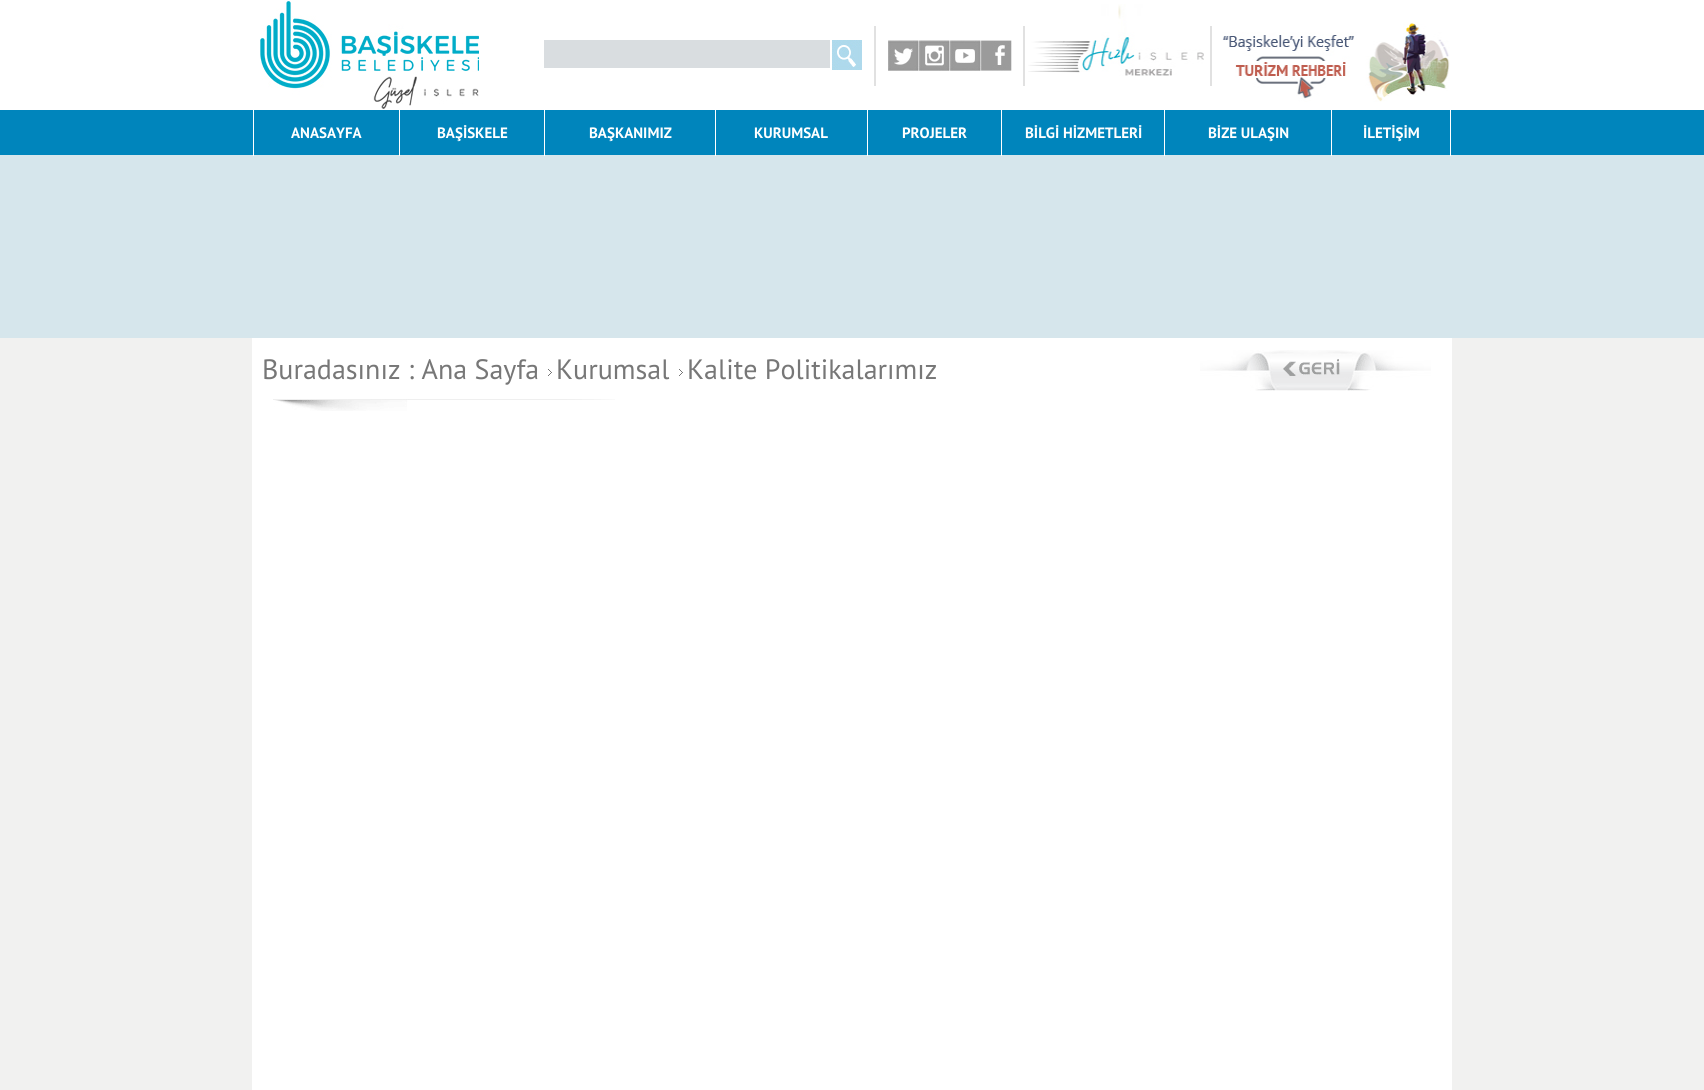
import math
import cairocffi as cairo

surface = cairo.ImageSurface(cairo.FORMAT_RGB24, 1704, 1090)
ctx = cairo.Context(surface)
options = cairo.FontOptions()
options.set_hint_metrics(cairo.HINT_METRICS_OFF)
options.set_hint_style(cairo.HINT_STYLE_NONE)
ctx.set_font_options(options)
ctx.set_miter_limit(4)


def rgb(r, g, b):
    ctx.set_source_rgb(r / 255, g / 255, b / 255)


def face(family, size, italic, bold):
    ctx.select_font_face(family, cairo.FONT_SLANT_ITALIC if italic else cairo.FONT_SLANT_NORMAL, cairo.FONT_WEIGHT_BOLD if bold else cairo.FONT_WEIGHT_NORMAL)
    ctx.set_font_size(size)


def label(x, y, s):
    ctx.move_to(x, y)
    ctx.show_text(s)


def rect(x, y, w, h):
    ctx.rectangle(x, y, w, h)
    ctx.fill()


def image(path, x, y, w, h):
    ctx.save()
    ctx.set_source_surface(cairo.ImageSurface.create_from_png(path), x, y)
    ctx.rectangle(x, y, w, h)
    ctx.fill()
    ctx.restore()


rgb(241, 241, 240)
ctx.paint()
rgb(255, 255, 255)
rect(0, 0, 1704, 110)
image('image0.png', 260, 1, 219, 108)
rgb(217, 221, 224)
rect(549, 41, 280, 26)
rect(544, 40, 286, 1)
rect(829, 40, 1, 28)
rect(544, 67, 286, 1)
rect(544, 40, 5, 28)
image('image1.png', 832, 40, 30, 30)
rgb(225, 225, 225)
rect(874, 26, 2, 60)
image('image2.png', 888, 40, 31, 31)
image('image3.png', 919, 40, 31, 31)
image('image4.png', 950, 40, 31, 31)
image('image5.png', 981, 40, 31, 31)
rect(1023, 26, 2, 60)
image('image6.png', 1028, 4, 176, 72)
rect(1210, 26, 2, 60)
image('image7.png', 1222, 22, 228, 80)
rgb(0, 133, 188)
rect(0, 110, 1704, 45)
rgb(214, 230, 236)
rect(0, 155, 1704, 183)
rgb(255, 255, 255)
rect(253, 110, 1, 46)
face('PT Sans', 15, 0, 1)
label(291, 138, 'ANASAYFA')
rect(399, 110, 1, 46)
label(437, 138, 'BAŞİSKELE')
rect(544, 110, 1, 46)
label(589, 138, 'BAŞKANIMIZ')
rect(715, 110, 1, 46)
label(754, 138, 'KURUMSAL')
rect(867, 110, 1, 46)
label(902, 138, 'PROJELER')
rect(1001, 110, 1, 46)
label(1025, 138, 'BİLGİ HİZMETLERİ')
rect(1164, 110, 1, 46)
label(1208, 138, 'BİZE ULAŞIN')
rect(1450, 110, 1, 46)
rect(1331, 110, 1, 46)
label(1363, 138, 'İLETİŞİM')
rect(252, 338, 1200, 752)
face('PT Sans', 28, 0, 0)
rgb(119, 119, 119)
label(262, 379, 'Buradasınız : Ana Sayfa')
image('image8.png', 548, 369, 4, 7)
label(556, 379, 'Kurumsal')
image('image8.png', 679, 369, 4, 7)
label(687, 379, 'Kalite Politikalarımız')
image('image9.png', 1200, 350, 231, 41)
image('image10.png', 273, 399, 342, 12)
surface.write_to_png('render.png')
